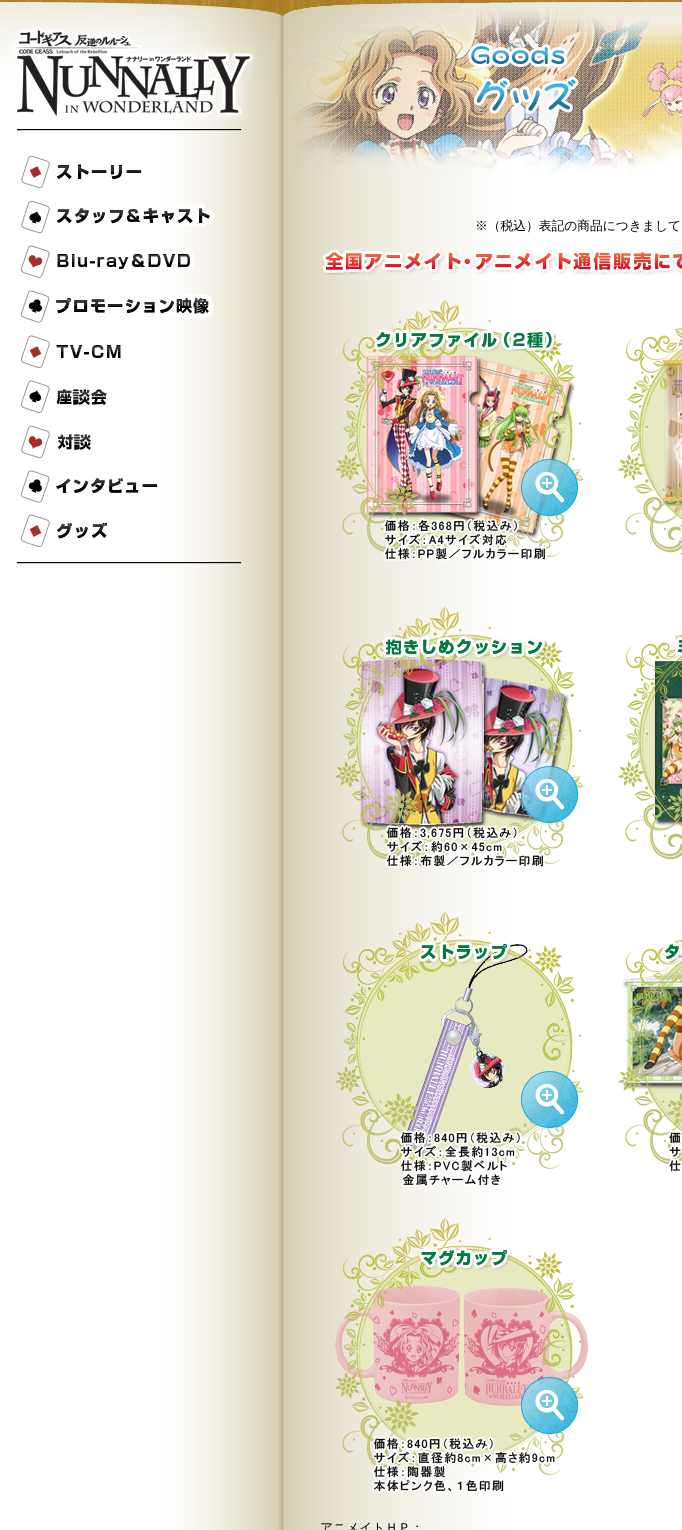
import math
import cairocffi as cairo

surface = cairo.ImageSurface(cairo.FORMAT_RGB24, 682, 1530)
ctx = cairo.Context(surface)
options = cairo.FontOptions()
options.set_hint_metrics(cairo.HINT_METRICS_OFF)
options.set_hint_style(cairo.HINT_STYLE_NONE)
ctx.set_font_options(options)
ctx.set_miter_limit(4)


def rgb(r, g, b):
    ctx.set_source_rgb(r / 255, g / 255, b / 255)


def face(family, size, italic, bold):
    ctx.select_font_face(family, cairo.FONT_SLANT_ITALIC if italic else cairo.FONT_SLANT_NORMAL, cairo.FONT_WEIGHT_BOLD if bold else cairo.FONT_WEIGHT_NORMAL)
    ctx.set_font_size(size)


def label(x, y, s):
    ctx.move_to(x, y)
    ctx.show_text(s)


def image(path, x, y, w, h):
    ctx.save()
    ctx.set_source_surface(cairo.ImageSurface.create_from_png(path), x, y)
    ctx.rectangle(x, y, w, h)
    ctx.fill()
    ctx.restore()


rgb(255, 255, 255)
ctx.paint()
image('image0.png', 0, 176, 682, 1354)
image('image1.png', 0, 0, 280, 568)
image('image2.png', 13, 27, 243, 94)
image('image3.png', 21, 155, 121, 34)
image('image4.png', 21, 200, 193, 34)
image('image5.png', 20, 245, 174, 33)
image('image6.png', 20, 290, 193, 33)
image('image7.png', 20, 335, 101, 34)
image('image8.png', 20, 380, 87, 33)
image('image9.png', 21, 425, 70, 34)
image('image10.png', 20, 470, 138, 33)
image('image11.png', 20, 514, 88, 34)
image('image12.png', 280, 0, 402, 176)
image('image13.png', 468, 43, 111, 71)
face('WenQuanYi Zen Hei Medium', 12.75, 0, 0)
rgb(0, 0, 0)
label(475, 230, '※（税込）表記の商品につきまして')
image('image14.png', 322, 249, 360, 26)
image('image15.png', 336, 299, 249, 262)
image('image16.png', 618, 321, 64, 234)
image('image17.png', 336, 606, 249, 262)
image('image18.png', 618, 628, 64, 232)
image('image19.png', 336, 911, 249, 277)
image('image20.png', 618, 933, 64, 239)
image('image21.png', 335, 1217, 255, 277)
label(320, 1532, 'アニメイトＨＰ：')
surface.write_to_png('render.png')
